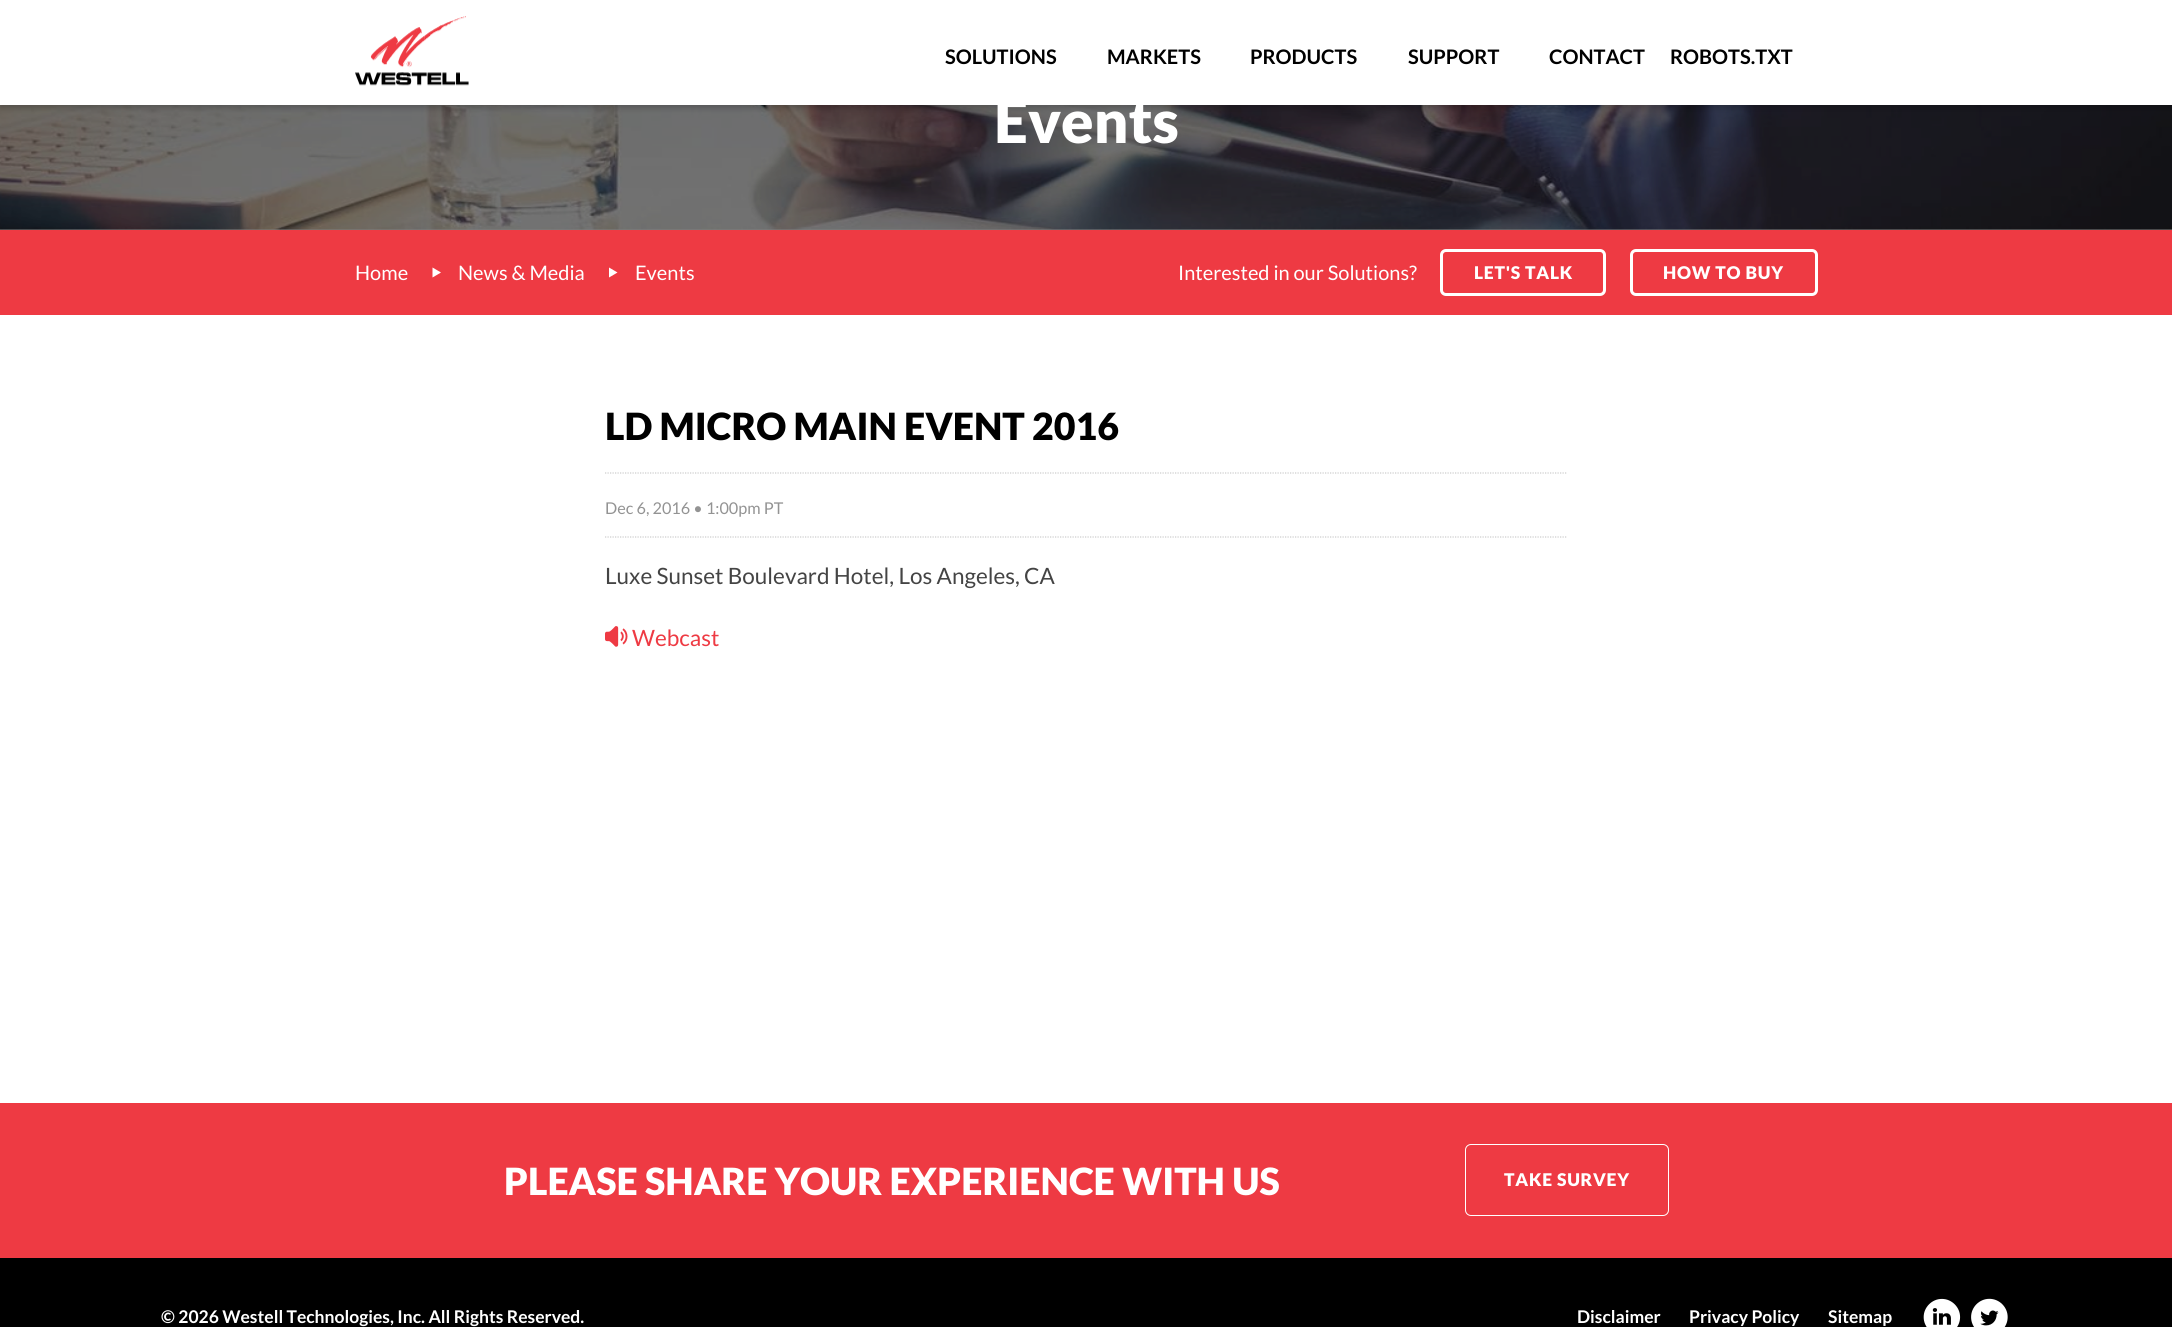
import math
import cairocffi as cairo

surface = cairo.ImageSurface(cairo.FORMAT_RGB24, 2172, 1327)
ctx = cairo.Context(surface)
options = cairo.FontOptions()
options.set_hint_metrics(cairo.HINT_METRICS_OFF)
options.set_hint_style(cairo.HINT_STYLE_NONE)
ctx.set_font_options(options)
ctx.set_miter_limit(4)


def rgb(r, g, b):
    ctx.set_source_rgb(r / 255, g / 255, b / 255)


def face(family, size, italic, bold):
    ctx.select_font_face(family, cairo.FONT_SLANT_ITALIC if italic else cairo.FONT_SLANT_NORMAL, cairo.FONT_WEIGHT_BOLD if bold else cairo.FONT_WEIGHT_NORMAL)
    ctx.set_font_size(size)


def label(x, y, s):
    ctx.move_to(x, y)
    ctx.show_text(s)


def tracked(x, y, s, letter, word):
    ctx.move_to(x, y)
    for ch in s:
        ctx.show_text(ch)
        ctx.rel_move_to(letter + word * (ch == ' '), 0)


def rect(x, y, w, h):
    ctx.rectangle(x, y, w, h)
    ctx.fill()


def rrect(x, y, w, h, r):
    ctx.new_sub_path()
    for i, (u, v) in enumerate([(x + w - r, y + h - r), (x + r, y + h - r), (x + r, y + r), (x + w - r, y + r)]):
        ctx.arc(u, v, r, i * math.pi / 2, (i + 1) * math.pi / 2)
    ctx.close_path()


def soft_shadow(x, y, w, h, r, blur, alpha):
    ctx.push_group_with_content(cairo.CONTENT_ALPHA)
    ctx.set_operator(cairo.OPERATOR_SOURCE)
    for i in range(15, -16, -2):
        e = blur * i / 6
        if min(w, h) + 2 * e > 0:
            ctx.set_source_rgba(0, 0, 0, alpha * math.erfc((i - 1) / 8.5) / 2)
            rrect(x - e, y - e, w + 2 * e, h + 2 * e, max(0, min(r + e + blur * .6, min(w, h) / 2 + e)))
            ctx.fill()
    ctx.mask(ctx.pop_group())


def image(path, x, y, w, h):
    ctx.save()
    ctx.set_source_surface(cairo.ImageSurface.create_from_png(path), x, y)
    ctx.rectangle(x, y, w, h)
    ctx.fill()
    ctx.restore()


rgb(255, 255, 255)
ctx.paint()
rgb(128, 128, 128)
rect(0, 229, 2172, 1)
image('image1.png', 0, 105, 2172, 125)
rgb(0, 0, 0)
soft_shadow(0, 3, 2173, 105, 0, 3, 0.2)
rgb(255, 255, 255)
rect(0, 0, 2172, 105)
image('image0.png', 355, 16, 114, 70)
face('Lato', 20, 0, 1)
rgb(0, 0, 0)
label(945, 64, 'SOLUTIONS')
label(1107, 64, 'MARKETS')
label(1250, 64, 'PRODUCTS')
label(1408, 64, 'SUPPORT')
label(1549, 64, 'CONTACT')
label(1670, 64, 'ROBOTS.TXT')
face('Lato Black', 60, 0, 0)
rgb(255, 255, 255)
label(994, 143, 'Events')
rgb(238, 58, 67)
rect(0, 230, 2172, 85)
face('Lato', 20, 0, 0)
rgb(255, 255, 255)
label(355, 280, 'Home')
ctx.new_path()
ctx.move_to(432.5, 277.5)
ctx.line_to(432.5, 267.5)
ctx.line_to(441, 272.5)
ctx.close_path()
ctx.fill()
label(458, 280, 'News & Media')
ctx.new_path()
ctx.move_to(609, 277.5)
ctx.line_to(609, 267.5)
ctx.line_to(617.5, 272.5)
ctx.close_path()
ctx.fill()
label(635, 280, 'Events')
label(1178, 280, 'Interested in our Solutions?')
rrect(1441.5, 250.5, 163, 44, 4.5)
ctx.set_line_width(3)
ctx.stroke()
face('Lato Black', 17.5, 0, 0)
tracked(1474, 279, 'LET\'S TALK', 0.75, 0)
rrect(1631.5, 250.5, 185, 44, 4.5)
ctx.stroke()
tracked(1663, 279, 'HOW TO BUY', 0.75, 0)
face('Lato Black', 37.5, 0, 0)
rgb(0, 0, 0)
label(605, 440, 'LD MICRO MAIN EVENT 2016')
ctx.new_path()
ctx.move_to(605, 473)
ctx.line_to(1567.5, 473)
rgb(204, 204, 204)
ctx.set_line_width(1.2)
ctx.set_dash([1.25, 1.25])
ctx.stroke()
ctx.new_path()
ctx.move_to(605, 537)
ctx.line_to(1567.5, 537)
ctx.stroke()
face('Lato', 16.25, 0, 0)
rgb(147, 147, 147)
label(605, 514, 'Dec 6, 2016 • 1:00pm PT')
face('Lato', 22.5, 0, 0)
rgb(68, 68, 68)
label(605, 584, 'Luxe Sunset Boulevard Hotel, Los Angeles, CA')
image('image2.png', 605, 626, 23, 21)
rgb(238, 58, 67)
label(632, 646, 'Webcast')
rect(0, 1103, 2172, 155)
face('Lato Black', 37.5, 0, 0)
rgb(255, 255, 255)
label(504, 1195, 'PLEASE SHARE YOUR EXPERIENCE WITH US')
rrect(1465.5, 1144.5, 203, 71, 5.5)
ctx.set_line_width(1)
ctx.set_dash([])
ctx.stroke()
face('Lato Black', 17.5, 0, 0)
tracked(1504, 1186, 'TAKE SURVEY', 0.75, 0)
rgb(0, 0, 0)
rect(0, 1258, 2172, 69)
face('Lato', 17.5, 0, 1)
rgb(255, 255, 255)
label(161, 1323, '© 2026 Westell Technologies, Inc. All Rights Reserved.')
label(1577, 1323, 'Disclaimer')
label(1689, 1323, 'Privacy Policy')
label(1828, 1323, 'Sitemap')
image('image3.png', 1923, 1298, 38, 29)
image('image4.png', 1971, 1298, 37, 29)
surface.write_to_png('render.png')
